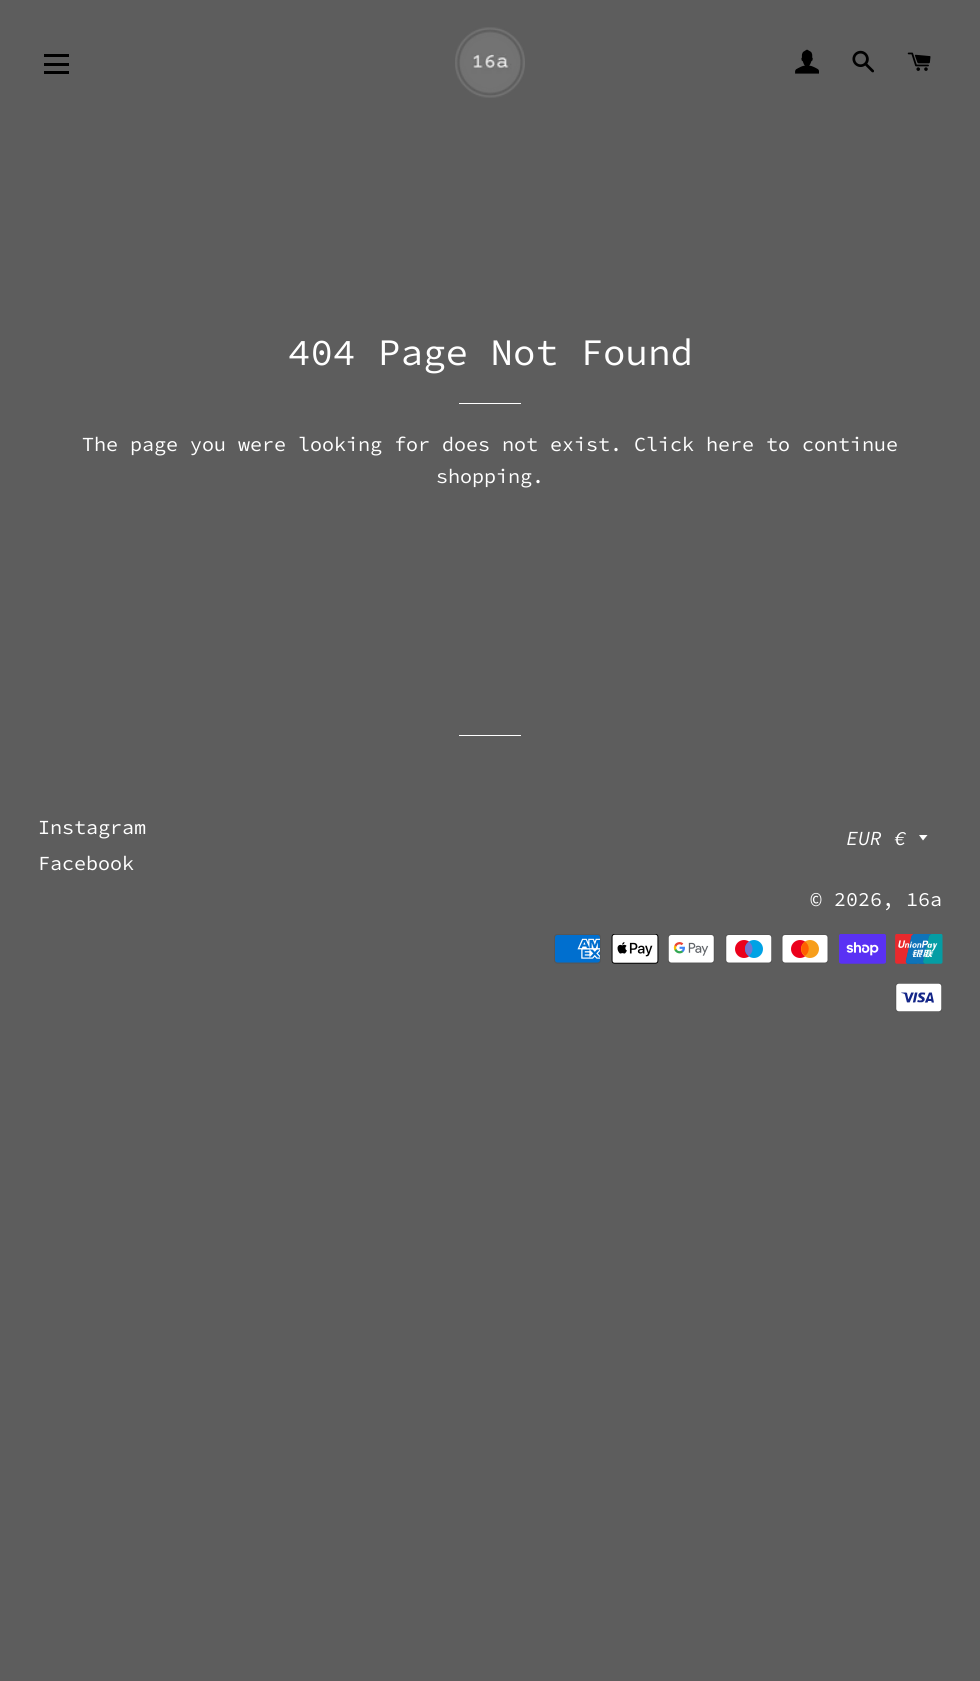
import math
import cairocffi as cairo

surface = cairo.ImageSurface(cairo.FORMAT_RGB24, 980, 1681)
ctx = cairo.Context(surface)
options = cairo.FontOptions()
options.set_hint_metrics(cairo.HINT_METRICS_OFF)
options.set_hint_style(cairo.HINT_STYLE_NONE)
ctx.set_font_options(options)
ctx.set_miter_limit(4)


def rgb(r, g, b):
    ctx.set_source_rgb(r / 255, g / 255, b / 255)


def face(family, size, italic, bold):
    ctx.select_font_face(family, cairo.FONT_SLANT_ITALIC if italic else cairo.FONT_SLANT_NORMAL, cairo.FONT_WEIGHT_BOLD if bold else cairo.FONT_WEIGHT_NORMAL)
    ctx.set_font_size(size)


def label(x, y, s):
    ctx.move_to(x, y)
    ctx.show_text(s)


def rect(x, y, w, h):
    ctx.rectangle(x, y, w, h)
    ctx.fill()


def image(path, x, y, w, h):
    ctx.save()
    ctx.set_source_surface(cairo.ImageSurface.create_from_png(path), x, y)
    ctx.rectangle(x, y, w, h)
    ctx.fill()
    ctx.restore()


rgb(93, 93, 93)
ctx.paint()
rgb(0, 0, 0)
rect(44, 54, 25, 3)
rect(44, 63, 25, 3)
rect(44, 71, 25, 3)
image('image0.png', 455, 27, 70, 71)
image('image1.png', 795, 49, 24, 25)
image('image2.png', 852, 50, 22, 23)
image('image3.png', 907, 52, 24, 19)
face('Source Code Pro', 37.5, 0, 0)
rgb(255, 255, 255)
label(288, 365, '404 Page Not Found')
rect(459, 403, 62, 1)
face('Source Code Pro', 20, 0, 0)
label(82, 451, 'The page you were looking for does not exist. Click here to continue')
label(436, 483, 'shopping.')
rect(459, 735, 62, 1)
label(38, 834, 'Instagram')
label(38, 870, 'Facebook')
ctx.new_path()
ctx.move_to(919, 835)
ctx.line_to(923, 840.5)
ctx.line_to(927.5, 835)
ctx.close_path()
ctx.fill()
face('Source Code Pro', 20, 1, 0)
label(846, 845, 'EUR €')
face('Source Code Pro', 20, 0, 0)
label(810, 906, '© 2026, 16a')
image('image4.png', 554, 934, 47, 30)
image('image5.png', 611, 934, 48, 30)
image('image6.png', 668, 934, 47, 30)
image('image7.png', 725, 934, 47, 30)
image('image8.png', 781, 934, 48, 30)
image('image9.png', 839, 934, 47, 30)
image('image10.png', 895, 934, 48, 30)
image('image11.png', 895, 983, 47, 29)
surface.write_to_png('render.png')
